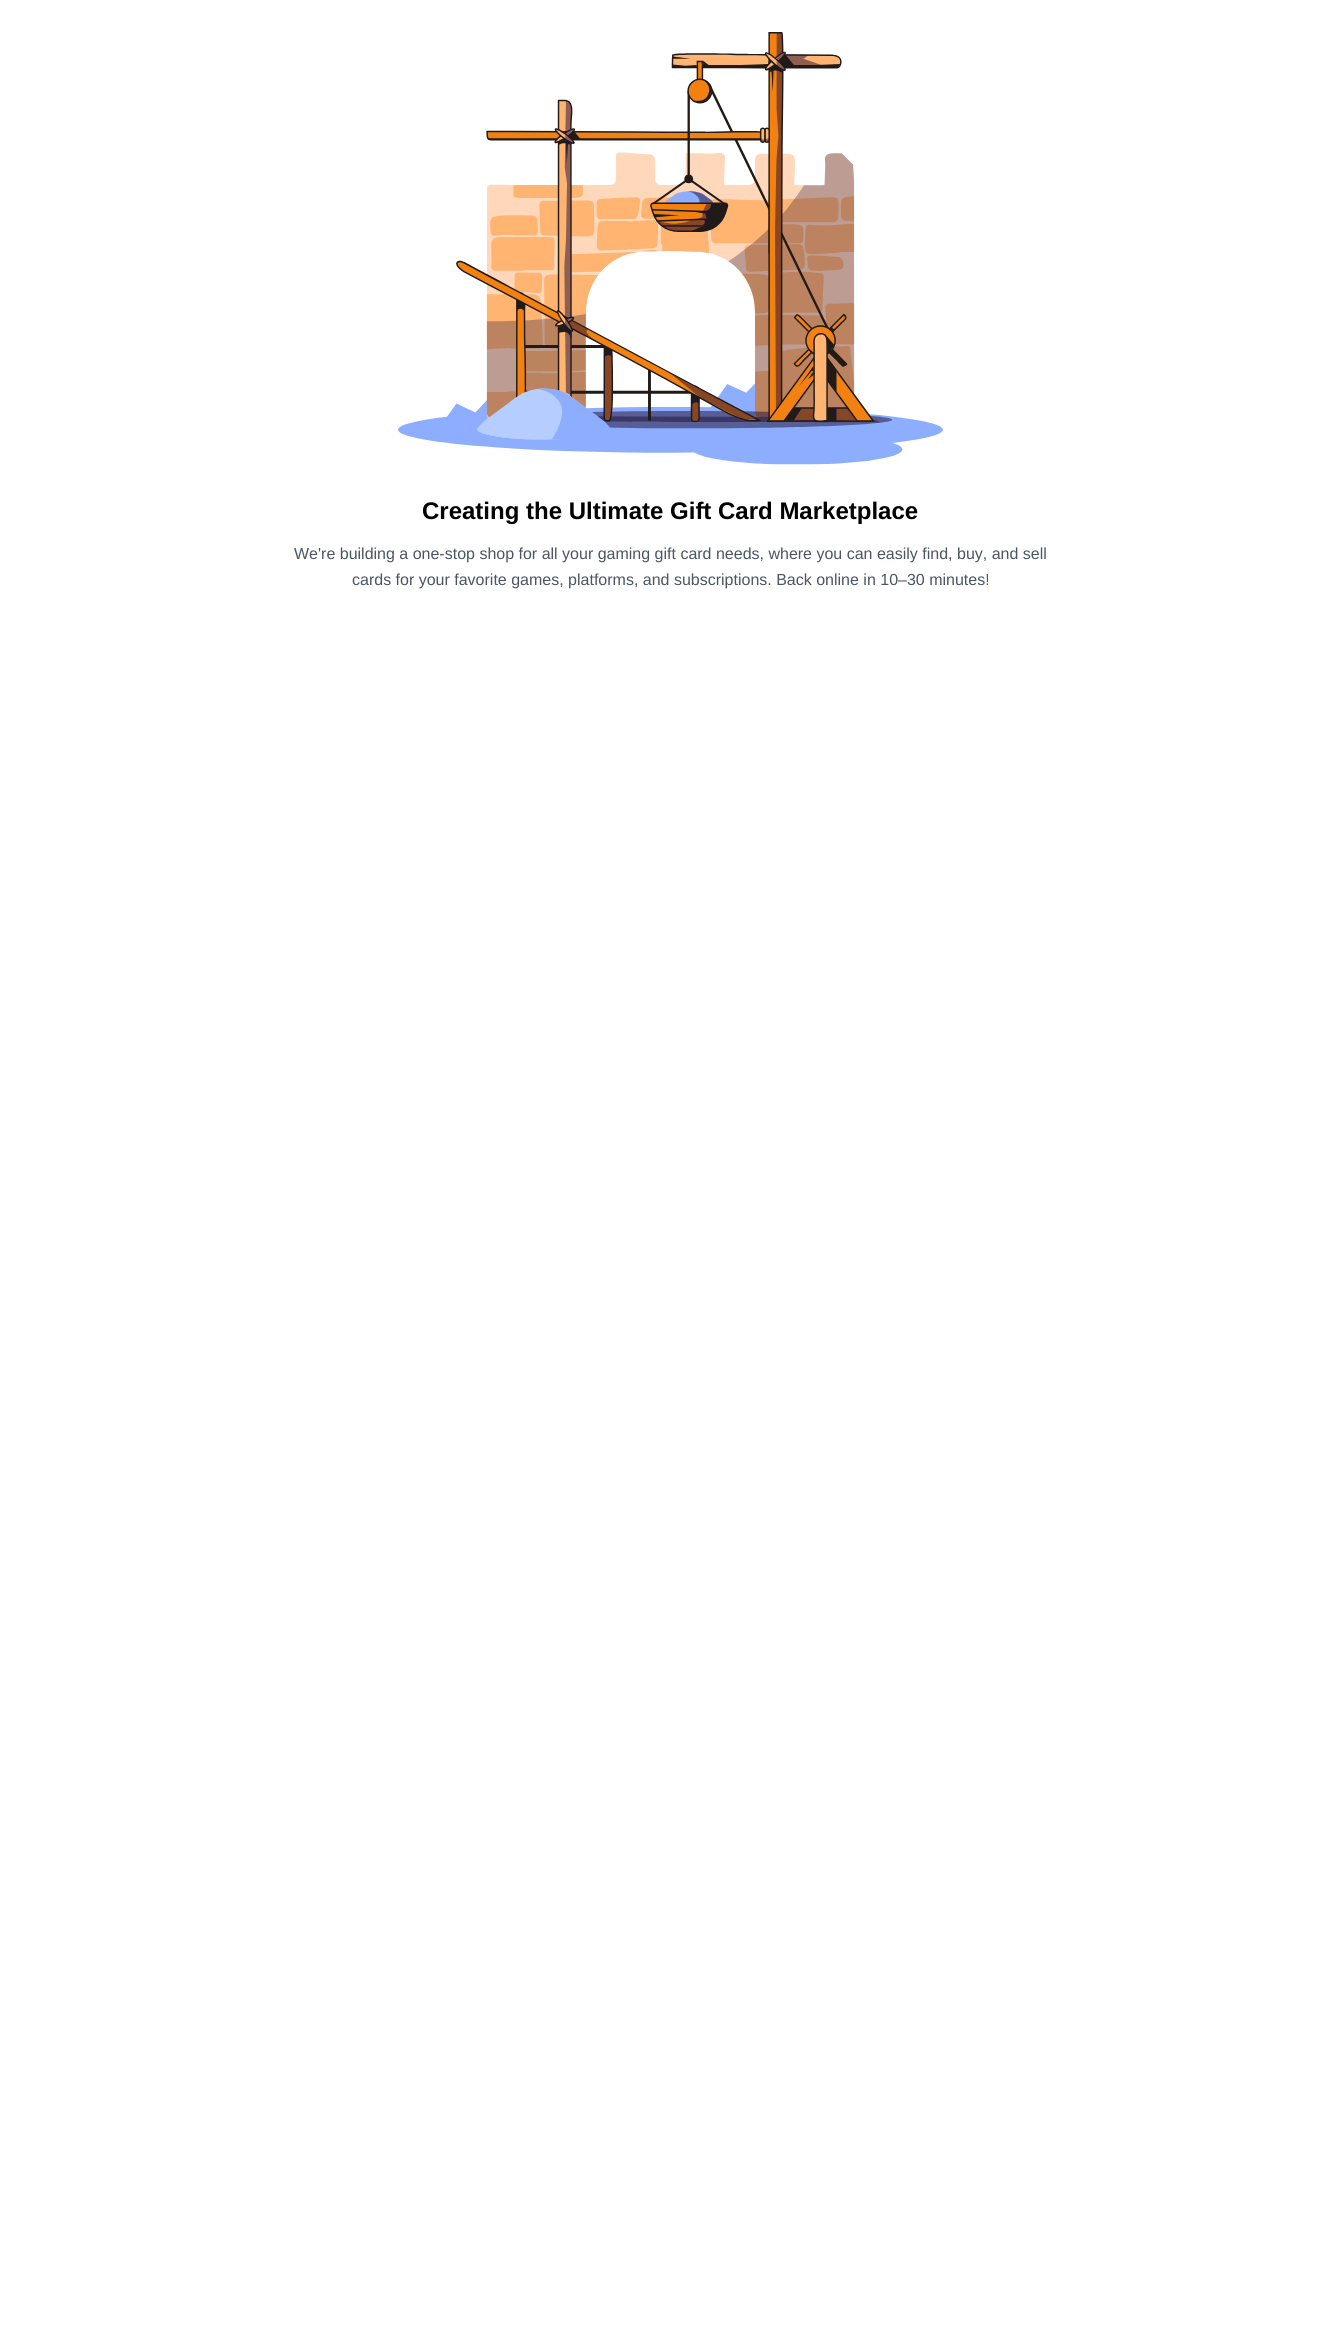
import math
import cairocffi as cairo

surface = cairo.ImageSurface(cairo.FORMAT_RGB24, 1341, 2337)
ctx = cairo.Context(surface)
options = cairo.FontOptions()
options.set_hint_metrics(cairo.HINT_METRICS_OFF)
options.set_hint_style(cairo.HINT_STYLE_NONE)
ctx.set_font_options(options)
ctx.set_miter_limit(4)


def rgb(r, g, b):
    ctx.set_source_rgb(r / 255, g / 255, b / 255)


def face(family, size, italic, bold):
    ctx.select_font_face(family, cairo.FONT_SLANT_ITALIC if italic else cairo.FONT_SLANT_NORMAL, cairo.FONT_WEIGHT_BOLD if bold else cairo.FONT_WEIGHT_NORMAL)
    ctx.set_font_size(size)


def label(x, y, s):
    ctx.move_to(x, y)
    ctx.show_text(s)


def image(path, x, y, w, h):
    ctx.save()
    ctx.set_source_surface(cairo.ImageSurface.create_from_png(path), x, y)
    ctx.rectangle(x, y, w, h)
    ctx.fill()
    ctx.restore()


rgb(255, 255, 255)
ctx.paint()
image('image0.png', 398, 32, 545, 433)
face('Liberation Sans', 24, 0, 1)
rgb(0, 0, 0)
label(422, 519, 'Creating the Ultimate Gift Card Marketplace')
face('Liberation Sans', 16, 0, 0)
rgb(75, 85, 99)
label(294, 559, 'We\'re building a one-stop shop for all your gaming gift card needs, where you can easily find, buy, and sell')
label(352, 585, 'cards for your favorite games, platforms, and subscriptions. Back online in 10–30 minutes!')
surface.write_to_png('render.png')
